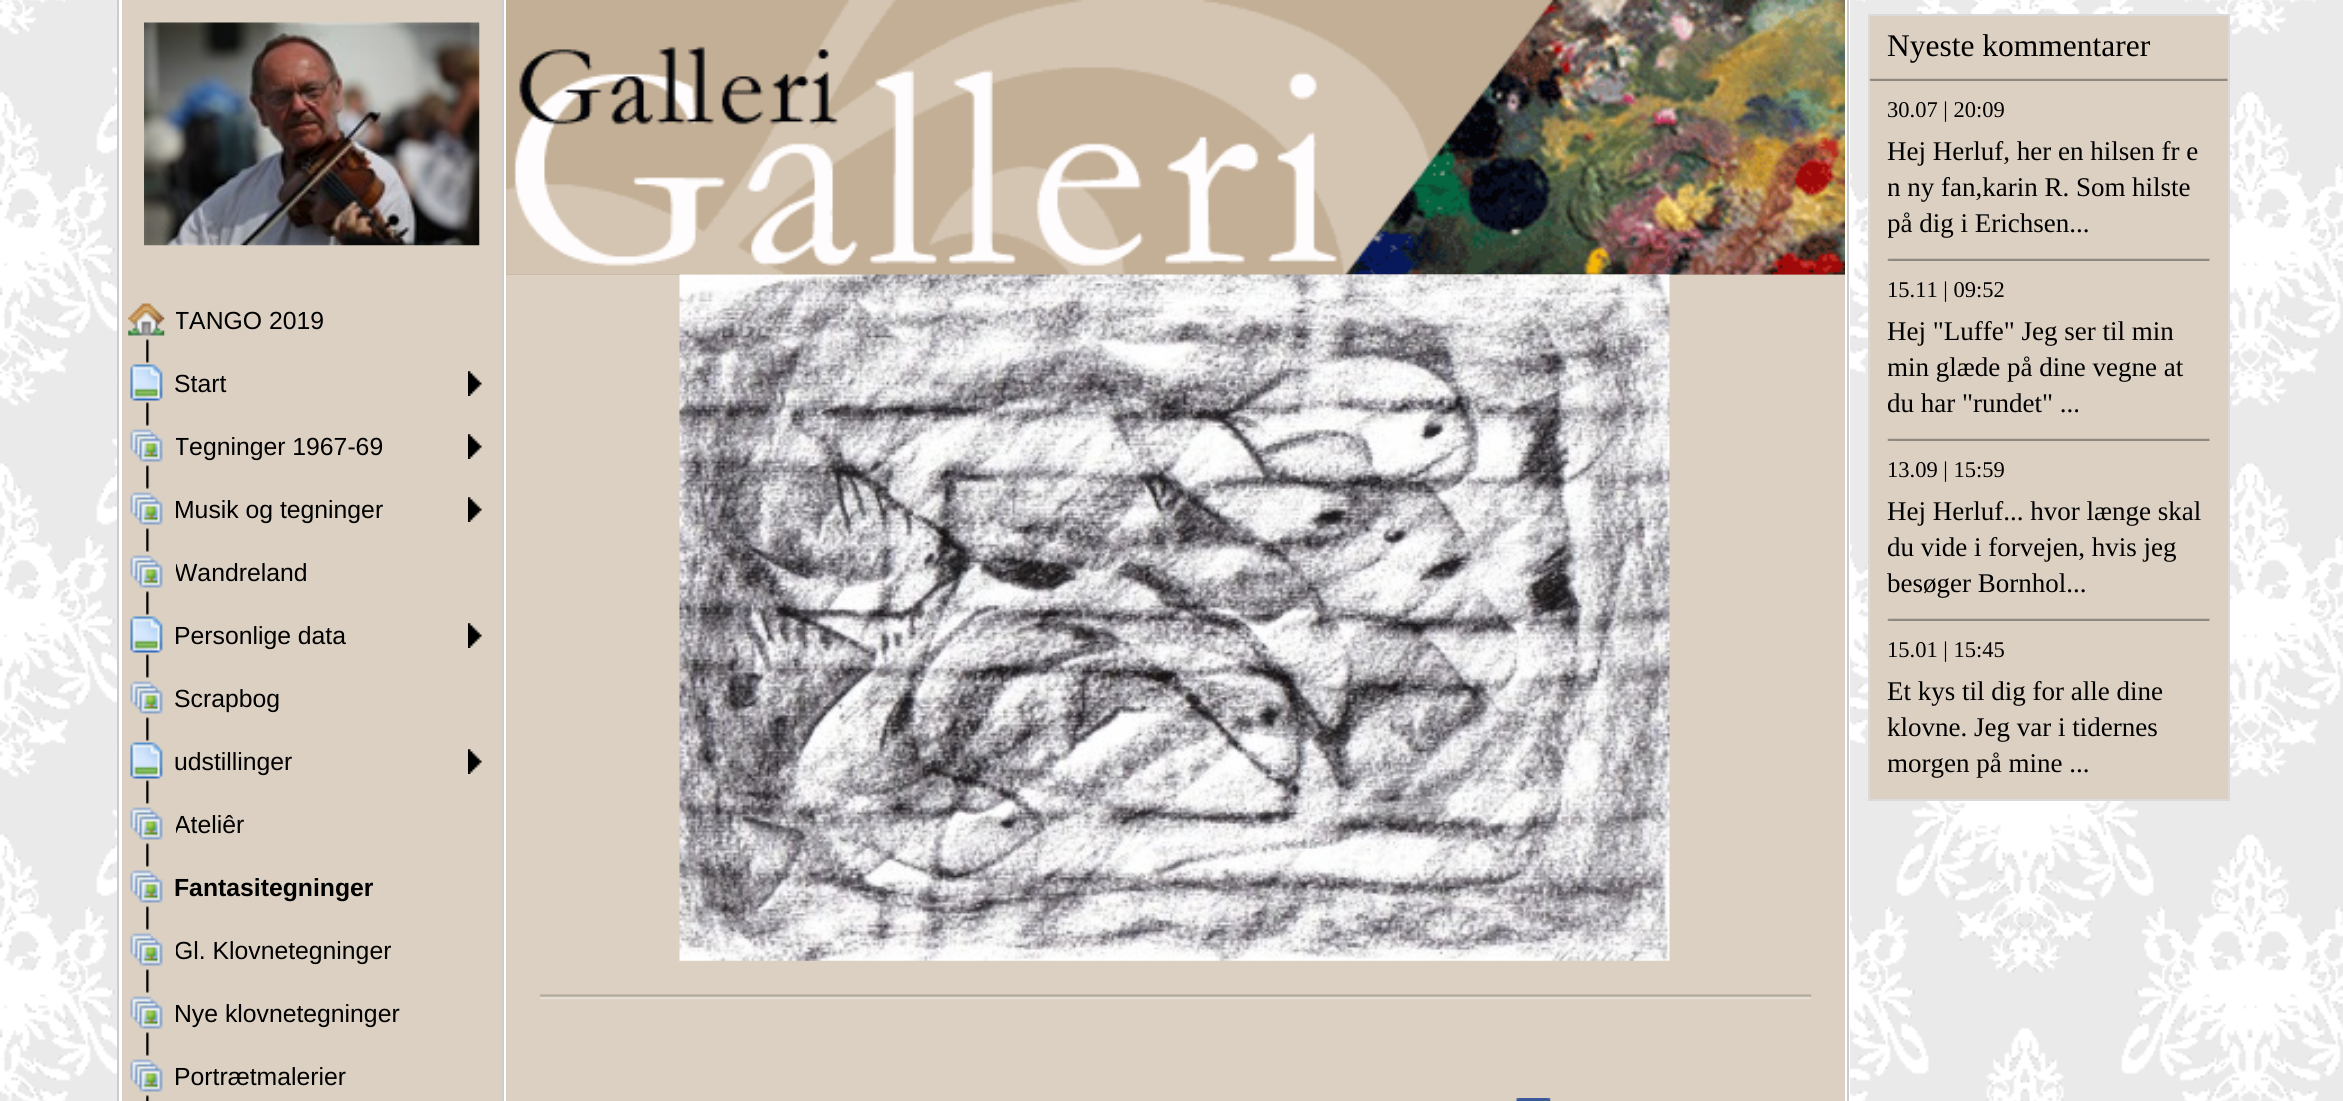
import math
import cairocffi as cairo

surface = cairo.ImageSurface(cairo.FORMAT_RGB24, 2343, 1101)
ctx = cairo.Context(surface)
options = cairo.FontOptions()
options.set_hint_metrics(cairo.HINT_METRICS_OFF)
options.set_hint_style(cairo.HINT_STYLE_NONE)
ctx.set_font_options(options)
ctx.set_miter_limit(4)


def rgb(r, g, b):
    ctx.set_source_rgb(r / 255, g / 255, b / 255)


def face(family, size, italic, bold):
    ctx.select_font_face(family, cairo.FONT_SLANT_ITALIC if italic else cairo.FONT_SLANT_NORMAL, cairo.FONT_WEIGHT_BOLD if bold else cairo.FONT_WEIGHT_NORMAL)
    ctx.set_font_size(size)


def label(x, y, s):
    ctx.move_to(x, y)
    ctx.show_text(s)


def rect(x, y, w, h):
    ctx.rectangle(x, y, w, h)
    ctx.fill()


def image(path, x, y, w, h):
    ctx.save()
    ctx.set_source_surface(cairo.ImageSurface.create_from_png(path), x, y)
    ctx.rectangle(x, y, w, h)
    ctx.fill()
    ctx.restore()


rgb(255, 255, 255)
ctx.paint()
image('image0.png', 0, 0, 2343, 1101)
rgb(255, 255, 255)
rect(119, 0, 1731, 1101)
rgb(204, 204, 204)
rect(117, 0, 2, 1101)
rgb(219, 208, 193)
rect(122, 0, 380, 1101)
image('image1.png', 144, 22, 336, 224)
image('image2.png', 146, 339, 4, 12)
image('image3.png', 128, 303, 37, 33)
ctx.save()
ctx.rectangle(176, 304, 283, 31)
ctx.clip()
face('Liberation Sans', 24.75, 0, 0)
rgb(0, 0, 0)
label(174, 329, 'TANGO 2019')
ctx.restore()
image('image4.png', 146, 351, 4, 63)
image('image5.png', 130, 364, 33, 37)
image('image6.png', 468, 371, 14, 25)
face('Liberation Sans', 24.75, 0, 0)
rgb(0, 0, 0)
label(174, 392, 'Start')
image('image4.png', 146, 414, 4, 63)
image('image7.png', 130, 429, 33, 33)
image('image6.png', 468, 434, 14, 25)
ctx.save()
ctx.rectangle(176, 430, 283, 31)
ctx.clip()
label(174, 455, 'Tegninger 1967-69')
ctx.restore()
image('image4.png', 146, 477, 4, 63)
image('image7.png', 130, 492, 33, 33)
image('image6.png', 468, 497, 14, 25)
label(174, 518, 'Musik og tegninger')
image('image4.png', 146, 540, 4, 63)
image('image8.png', 130, 555, 33, 33)
ctx.save()
ctx.rectangle(176, 556, 283, 31)
ctx.clip()
label(174, 581, 'Wandreland')
ctx.restore()
image('image4.png', 146, 603, 4, 63)
image('image5.png', 130, 616, 33, 37)
image('image6.png', 468, 623, 14, 25)
label(174, 644, 'Personlige data')
image('image4.png', 146, 666, 4, 63)
image('image7.png', 130, 681, 33, 33)
label(174, 707, 'Scrapbog')
image('image4.png', 146, 729, 4, 63)
image('image5.png', 130, 742, 33, 37)
image('image6.png', 468, 749, 14, 25)
label(174, 770, 'udstillinger')
image('image4.png', 146, 792, 4, 63)
image('image7.png', 130, 807, 33, 33)
ctx.save()
ctx.rectangle(176, 808, 283, 31)
ctx.clip()
label(174, 833, 'Ateliêr')
ctx.restore()
image('image4.png', 146, 855, 4, 63)
image('image7.png', 130, 870, 33, 33)
face('Liberation Sans', 24.75, 0, 1)
label(174, 896, 'Fantasitegninger')
image('image4.png', 146, 918, 4, 63)
image('image7.png', 130, 933, 33, 33)
ctx.save()
ctx.rectangle(176, 934, 283, 31)
ctx.clip()
face('Liberation Sans', 24.75, 0, 0)
label(174, 959, 'Gl. Klovnetegninger')
ctx.restore()
image('image4.png', 146, 981, 4, 63)
image('image7.png', 130, 996, 33, 33)
face('Liberation Sans', 24.75, 0, 0)
label(174, 1022, 'Nye klovnetegninger')
image('image9.png', 146, 1044, 4, 57)
image('image7.png', 130, 1059, 33, 33)
label(174, 1085, 'Portrætmalerier')
rgb(204, 204, 204)
rect(502, 0, 2, 1101)
rgb(219, 208, 193)
rect(506, 275, 1339, 826)
rgb(195, 175, 150)
rect(506, 0, 1339, 275)
image('image10.png', 506, 0, 1339, 275)
image('image11.png', 679, 274, 991, 687)
image('image12.png', 540, 994, 1272, 5)
image('image13.png', 1516, 1098, 35, 3)
rgb(204, 204, 204)
rect(1847, 0, 2, 1101)
rgb(219, 208, 193)
ctx.rectangle(1869, 15, 360, 785)
ctx.fill_preserve()
rgb(218, 218, 218)
ctx.stroke()
face('Liberation Serif', 31.5, 0, 0)
rgb(0, 0, 0)
label(1887, 56, 'Nyeste kommentarer')
image('image14.png', 1869, 78, 359, 3)
face('Liberation Serif', 22.5, 0, 0)
label(1887, 117, '30.07 | 20:09')
face('Liberation Serif', 27, 0, 0)
label(1887, 160, 'Hej Herluf, her en hilsen fr e')
ctx.save()
ctx.rectangle(1888, 133, 322, 108)
ctx.clip()
label(1887, 196, 'n ny fan,karin R. Som')
ctx.restore()
label(2132, 196, 'hilste')
ctx.save()
ctx.rectangle(1888, 133, 322, 108)
ctx.clip()
label(1887, 232, 'på dig i Erichsen...')
ctx.restore()
image('image15.png', 1887, 258, 323, 3)
face('Liberation Serif', 22.5, 0, 0)
label(1887, 297, '15.11 | 09:52')
face('Liberation Serif', 27, 0, 0)
label(1887, 340, 'Hej "Luffe" Jeg ser til min')
ctx.save()
ctx.rectangle(1888, 313, 322, 108)
ctx.clip()
label(1887, 376, 'min glæde på dine vegne at')
label(1887, 412, 'du har "rundet" ...')
ctx.restore()
image('image15.png', 1887, 438, 323, 3)
face('Liberation Serif', 22.5, 0, 0)
label(1887, 477, '13.09 | 15:59')
face('Liberation Serif', 27, 0, 0)
label(1887, 520, 'Hej Herluf... hvor længe skal')
ctx.save()
ctx.rectangle(1888, 493, 322, 108)
ctx.clip()
label(1887, 556, 'du vide i forvejen, hvis jeg')
ctx.restore()
label(1887, 592, 'besøger Bornhol...')
image('image15.png', 1887, 618, 323, 3)
face('Liberation Serif', 22.5, 0, 0)
label(1887, 657, '15.01 | 15:45')
face('Liberation Serif', 27, 0, 0)
label(1887, 700, 'Et kys til dig for alle dine')
label(1887, 736, 'klovne. Jeg var i tidernes')
ctx.save()
ctx.rectangle(1888, 673, 322, 108)
ctx.clip()
label(1887, 772, 'morgen på mine ...')
ctx.restore()
surface.write_to_png('render.png')
